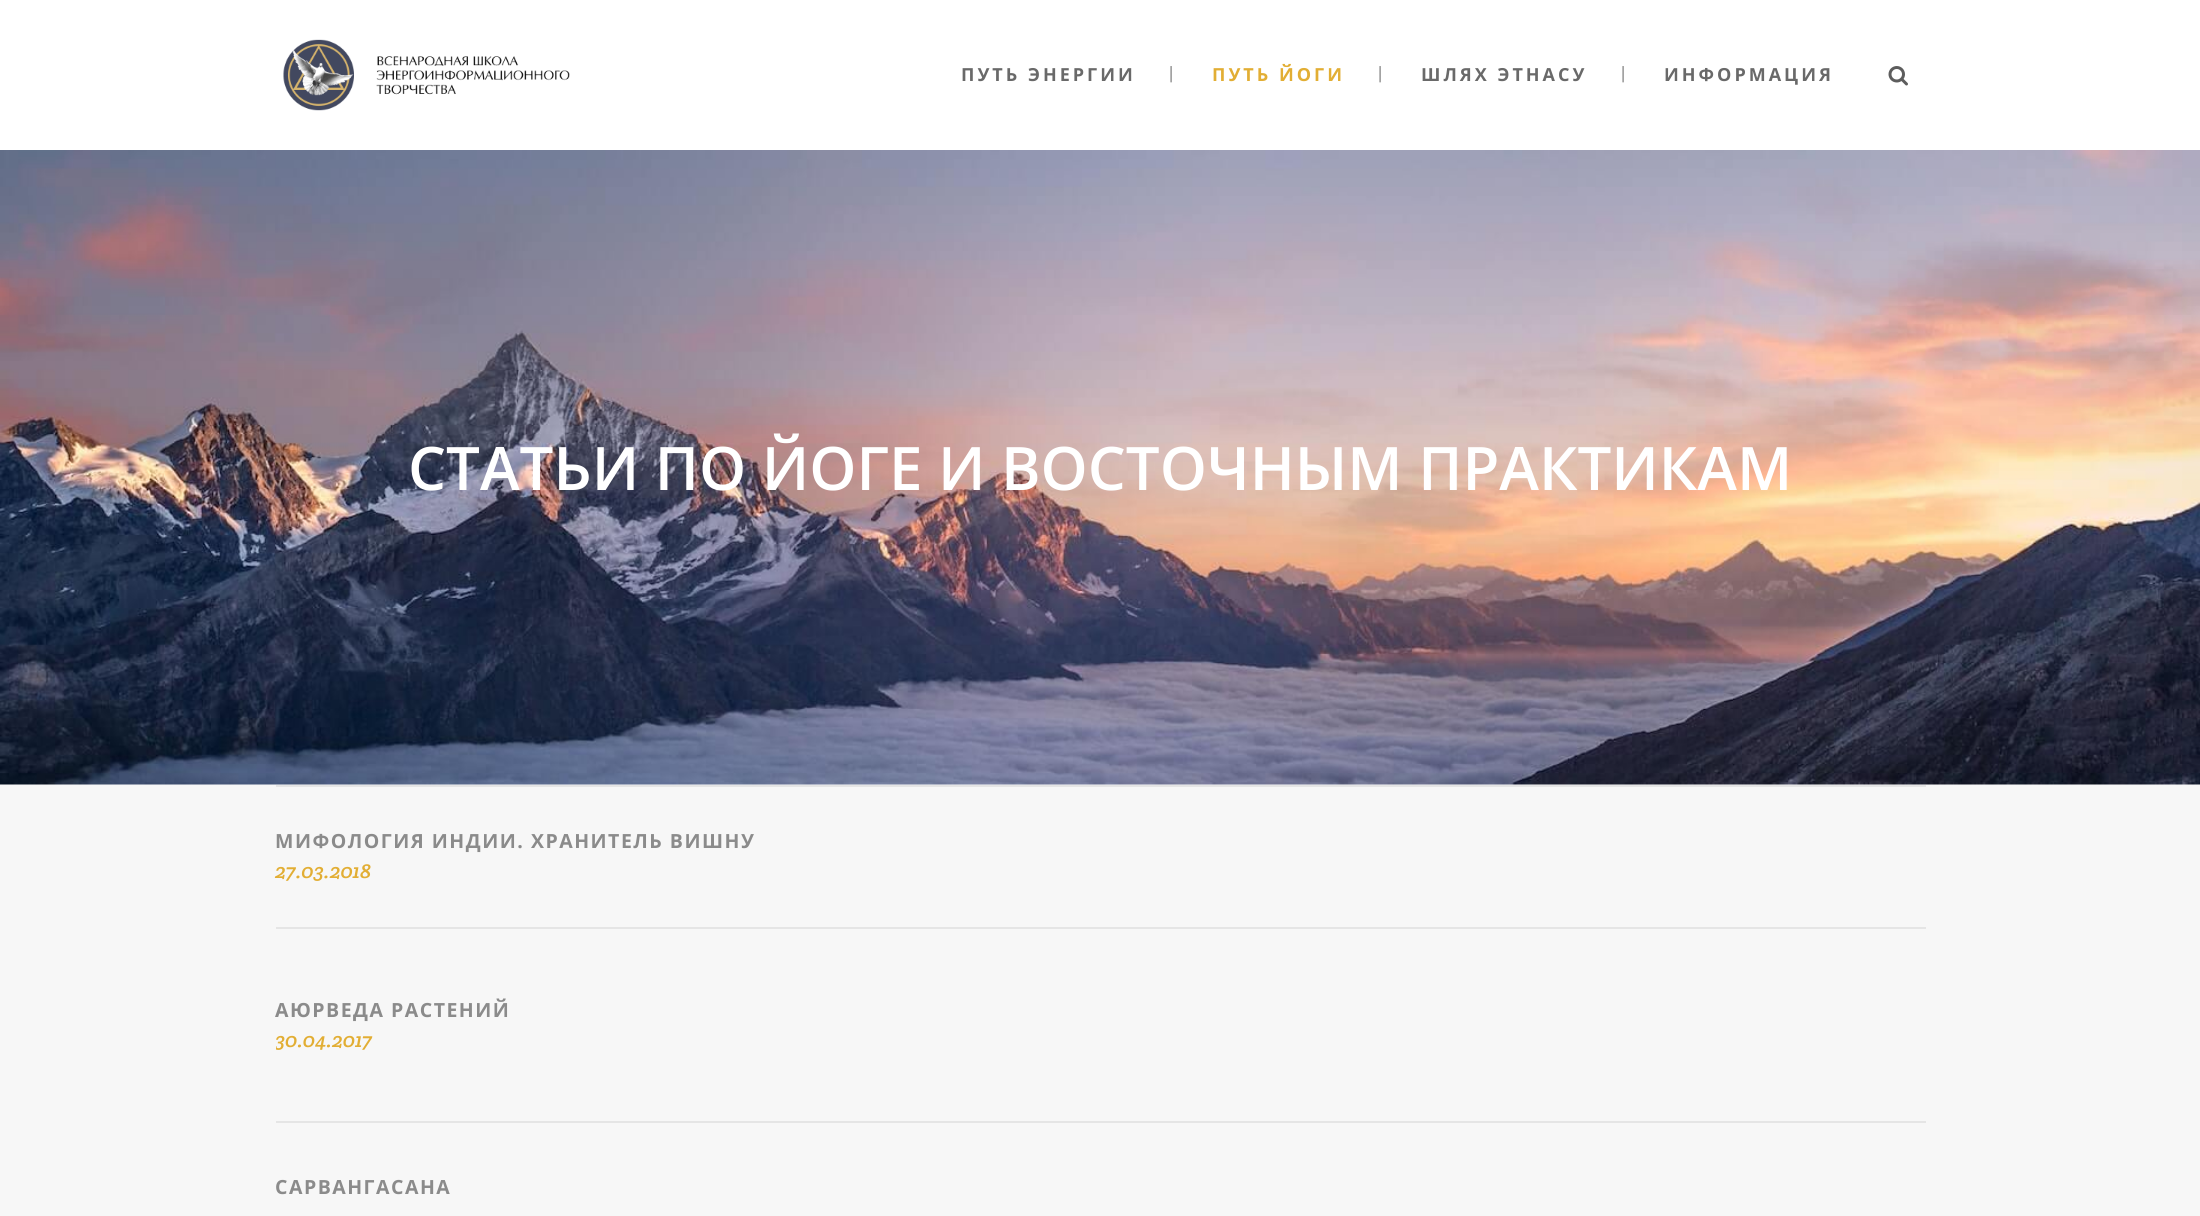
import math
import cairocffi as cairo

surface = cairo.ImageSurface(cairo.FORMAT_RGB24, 2200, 1216)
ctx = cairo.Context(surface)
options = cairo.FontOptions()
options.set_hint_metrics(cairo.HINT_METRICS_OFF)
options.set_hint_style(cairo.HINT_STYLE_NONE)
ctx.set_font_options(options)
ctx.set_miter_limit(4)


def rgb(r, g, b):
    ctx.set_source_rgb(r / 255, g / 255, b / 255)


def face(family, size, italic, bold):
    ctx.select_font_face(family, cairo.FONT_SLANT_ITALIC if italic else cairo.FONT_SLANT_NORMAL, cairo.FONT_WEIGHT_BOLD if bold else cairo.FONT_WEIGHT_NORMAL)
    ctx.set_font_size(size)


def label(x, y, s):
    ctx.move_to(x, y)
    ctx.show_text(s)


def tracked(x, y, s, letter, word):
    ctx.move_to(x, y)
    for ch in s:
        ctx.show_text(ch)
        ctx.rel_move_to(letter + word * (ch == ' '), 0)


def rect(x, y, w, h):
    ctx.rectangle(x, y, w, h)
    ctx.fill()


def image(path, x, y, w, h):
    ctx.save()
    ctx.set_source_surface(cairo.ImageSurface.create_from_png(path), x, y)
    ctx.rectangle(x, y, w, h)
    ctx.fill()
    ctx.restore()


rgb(247, 247, 247)
ctx.paint()
rgb(255, 255, 255)
rect(0, 0, 2200, 150)
image('image0.png', 283, 39, 287, 72)
face('Open Sans', 18, 0, 1)
rgb(105, 105, 105)
tracked(961, 81, 'ПУТЬ ЭНЕРГИИ', 3, 0)
face('Raleway', 18, 0, 0)
label(1169, 80, '|')
face('Open Sans', 18, 0, 1)
rgb(226, 174, 52)
tracked(1212, 81, 'ПУТЬ ЙОГИ', 3, 0)
face('Raleway', 18, 0, 0)
rgb(105, 105, 105)
label(1378, 80, '|')
face('Open Sans', 18, 0, 1)
tracked(1421, 81, 'ШЛЯХ ЭТНАСУ', 3, 0)
face('Raleway', 18, 0, 0)
label(1621, 80, '|')
face('Open Sans', 18, 0, 1)
tracked(1664, 81, 'ИНФОРМАЦИЯ', 3, 0)
image('image1.png', 1888, 66, 20, 20)
image('image2.png', 0, 150, 2200, 635)
face('Open Sans SemiBold', 60, 0, 0)
rgb(255, 255, 255)
label(408, 490, 'СТАТЬИ ПО ЙОГЕ И ВОСТОЧНЫМ ПРАКТИКАМ')
rgb(229, 229, 229)
rect(276, 785, 1650, 2)
rect(276, 927, 1650, 2)
face('Open Sans', 19.5, 0, 1)
rgb(139, 139, 139)
tracked(275, 848, 'МИФОЛОГИЯ ИНДИИ. ХРАНИТЕЛЬ ВИШНУ', 1.5, 0)
face('Crete Round', 21, 1, 0)
rgb(226, 174, 52)
label(275, 878, '27.03.2018')
rgb(229, 229, 229)
rect(276, 1121, 1650, 2)
face('Open Sans', 19.5, 0, 1)
rgb(139, 139, 139)
tracked(275, 1017, 'АЮРВЕДА РАСТЕНИЙ', 1.5, 0)
ctx.save()
ctx.rectangle(276, 929, 1650, 192)
ctx.clip()
face('Crete Round', 21, 1, 0)
rgb(226, 174, 52)
label(275, 1047, '30.04.2017')
ctx.restore()
tracked(275, 1194, 'САРВАНГАСАНА', 1.5, 0)
surface.write_to_png('render.png')
